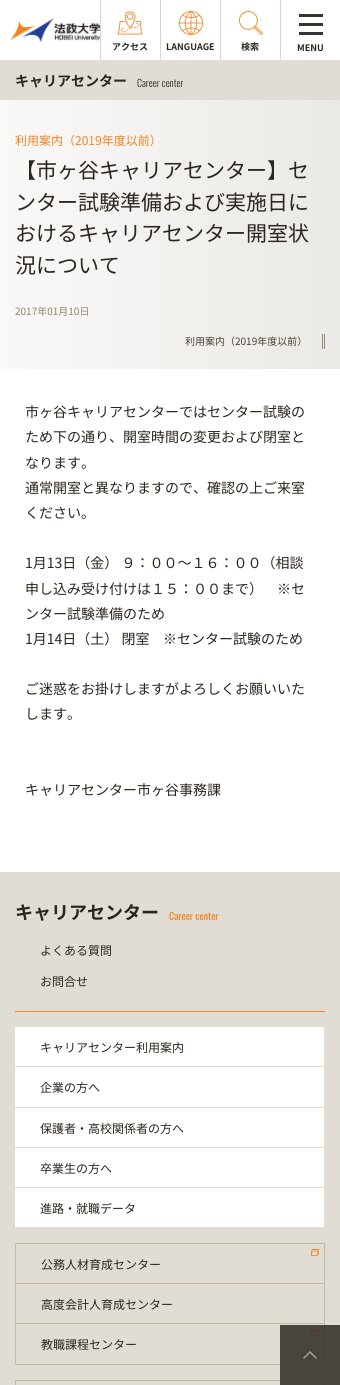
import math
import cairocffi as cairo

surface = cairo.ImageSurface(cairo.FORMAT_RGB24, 340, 1385)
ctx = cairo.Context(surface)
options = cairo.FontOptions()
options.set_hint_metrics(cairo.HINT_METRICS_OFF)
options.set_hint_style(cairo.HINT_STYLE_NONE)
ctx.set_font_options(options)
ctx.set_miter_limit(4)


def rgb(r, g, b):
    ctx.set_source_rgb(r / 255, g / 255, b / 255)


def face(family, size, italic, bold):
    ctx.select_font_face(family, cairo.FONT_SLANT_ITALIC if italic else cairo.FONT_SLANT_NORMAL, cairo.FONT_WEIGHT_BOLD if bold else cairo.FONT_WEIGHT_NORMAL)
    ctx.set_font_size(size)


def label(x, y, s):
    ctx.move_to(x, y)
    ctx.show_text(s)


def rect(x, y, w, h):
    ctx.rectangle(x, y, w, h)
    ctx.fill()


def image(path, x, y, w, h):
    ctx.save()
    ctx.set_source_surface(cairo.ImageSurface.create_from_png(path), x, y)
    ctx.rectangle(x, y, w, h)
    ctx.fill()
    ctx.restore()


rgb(255, 255, 255)
ctx.paint()
image('image0.png', 10, 18, 90, 24)
rgb(222, 211, 197)
rect(100, 0, 1, 60)
image('image1.png', 118, 11, 24, 24)
face('Noto Sans JP', 9, 0, 1)
rgb(44, 38, 31)
label(112, 50, 'アクセス')
rgb(222, 211, 197)
rect(160, 0, 1, 60)
image('image2.png', 179, 11, 24, 24)
rgb(44, 38, 31)
label(166, 50, 'LANGUAGE')
rgb(222, 211, 197)
rect(220, 0, 1, 60)
image('image3.png', 239, 11, 24, 24)
rgb(44, 38, 31)
label(241, 50, '検索')
rgb(222, 211, 197)
rect(280, 0, 1, 60)
rgb(56, 51, 44)
rect(299, 14, 24, 3)
rect(299, 23, 24, 3)
rect(299, 32, 24, 3)
rgb(44, 38, 31)
label(297, 51, 'MENU')
rgb(225, 221, 213)
rect(0, 60, 340, 40)
face('Noto Sans JP', 14, 0, 1)
rgb(44, 38, 31)
label(15, 86, 'キャリアセンター')
face('Oswald Light', 10, 0, 0)
label(137, 87, 'Career center')
gradient = cairo.LinearGradient(340, 235, 0, 235)
gradient.add_color_stop_rgba(0, 0.922, 0.914, 0.898, 1)
gradient.add_color_stop_rgba(1, 0.98, 0.976, 0.973, 1)
ctx.set_source(gradient)
rect(0, 100, 340, 269)
face('Noto Sans JP', 12, 0, 0)
rgb(245, 130, 31)
label(15, 145, '利用案内（2019年度以前）')
face('Noto Sans JP', 21, 0, 0)
rgb(44, 38, 31)
label(15, 178, '【市ヶ谷キャリアセンター】セ')
label(15, 210, 'ンター試験準備および実施日に')
label(15, 241, 'おけるキャリアセンター開室状')
label(15, 273, '況について')
face('Noto Sans JP', 10, 0, 0)
rgb(146, 132, 108)
label(15, 315, '2017年01月10日')
rgb(75, 65, 54)
label(185, 345, '利用案内（2019年度以前）')
rgb(151, 136, 111)
rect(322, 334, 1, 15)
rect(324, 334, 1, 15)
face('Noto Sans JP', 14, 0, 0)
rgb(44, 38, 31)
label(25, 417, '市ヶ谷キャリアセンターではセンター試験の')
label(25, 442, 'ため下の通り、開室時間の変更および閉室と')
label(25, 468, 'なります。')
label(25, 493, '通常開室と異なりますので、確認の上ご来室')
label(25, 518, 'ください。')
label(25, 568, '1月13日（金） ９：００～１６：００（相談')
label(25, 594, '申し込み受け付けは１５：００まで）　※セ')
label(25, 619, 'ンター試験準備のため')
label(25, 644, '1月14日（土） 閉室')
label(163, 644, '※センター試験のため')
label(25, 694, 'ご迷惑をお掛けしますがよろしくお願いいた')
label(25, 719, 'します。')
label(25, 795, 'キャリアセンター市ヶ谷事務課')
rgb(225, 221, 213)
rect(0, 872, 340, 513)
rgb(73, 68, 61)
rect(280, 1325, 60, 60)
rgb(245, 130, 31)
rect(15, 1011, 310, 1)
face('Noto Sans JP', 18, 0, 1)
rgb(44, 38, 31)
label(15, 919, 'キャリアセンター')
face('Oswald', 10, 0, 0)
rgb(245, 130, 31)
label(169, 920, 'Career center')
face('Noto Sans JP', 12, 0, 0)
rgb(44, 38, 31)
label(40, 955, 'よくある質問')
label(40, 986, 'お問合せ')
rgb(255, 255, 255)
rect(15, 1027, 309, 39)
rgb(44, 38, 31)
label(40, 1052, 'キャリアセンター利用案内')
rgb(255, 255, 255)
rect(15, 1067, 309, 40)
rgb(44, 38, 31)
label(40, 1092, '企業の方へ')
rgb(255, 255, 255)
rect(15, 1108, 309, 39)
rgb(44, 38, 31)
label(40, 1133, '保護者・高校関係者の方へ')
rgb(255, 255, 255)
rect(15, 1148, 309, 39)
rgb(44, 38, 31)
label(40, 1173, '卒業生の方へ')
rgb(255, 255, 255)
rect(15, 1188, 309, 39)
rgb(44, 38, 31)
label(40, 1213, '進路・就職データ')
rgb(199, 186, 165)
rect(15, 1243, 1, 122)
rect(16, 1243, 309, 1)
rect(324, 1243, 1, 82)
rect(16, 1283, 309, 1)
image('image4.png', 311, 1249, 8, 7)
rgb(44, 38, 31)
label(41, 1269, '公務人材育成センター')
rgb(199, 186, 165)
rect(16, 1323, 309, 1)
rgb(44, 38, 31)
label(41, 1309, '高度会計人育成センター')
rgb(70, 65, 56)
rect(324, 1325, 1, 40)
rgb(199, 186, 165)
rect(16, 1364, 264, 1)
rgb(70, 65, 56)
rect(280, 1364, 45, 1)
image('image5.png', 311, 1329, 8, 7)
rgb(44, 38, 31)
label(41, 1349, '教職課程センター')
rgb(199, 186, 165)
rect(15, 1380, 1, 5)
rect(16, 1380, 264, 1)
rgb(70, 65, 56)
rect(280, 1380, 45, 1)
rect(324, 1380, 1, 5)
image('image6.png', 303, 1351, 14, 8)
surface.write_to_png('render.png')
